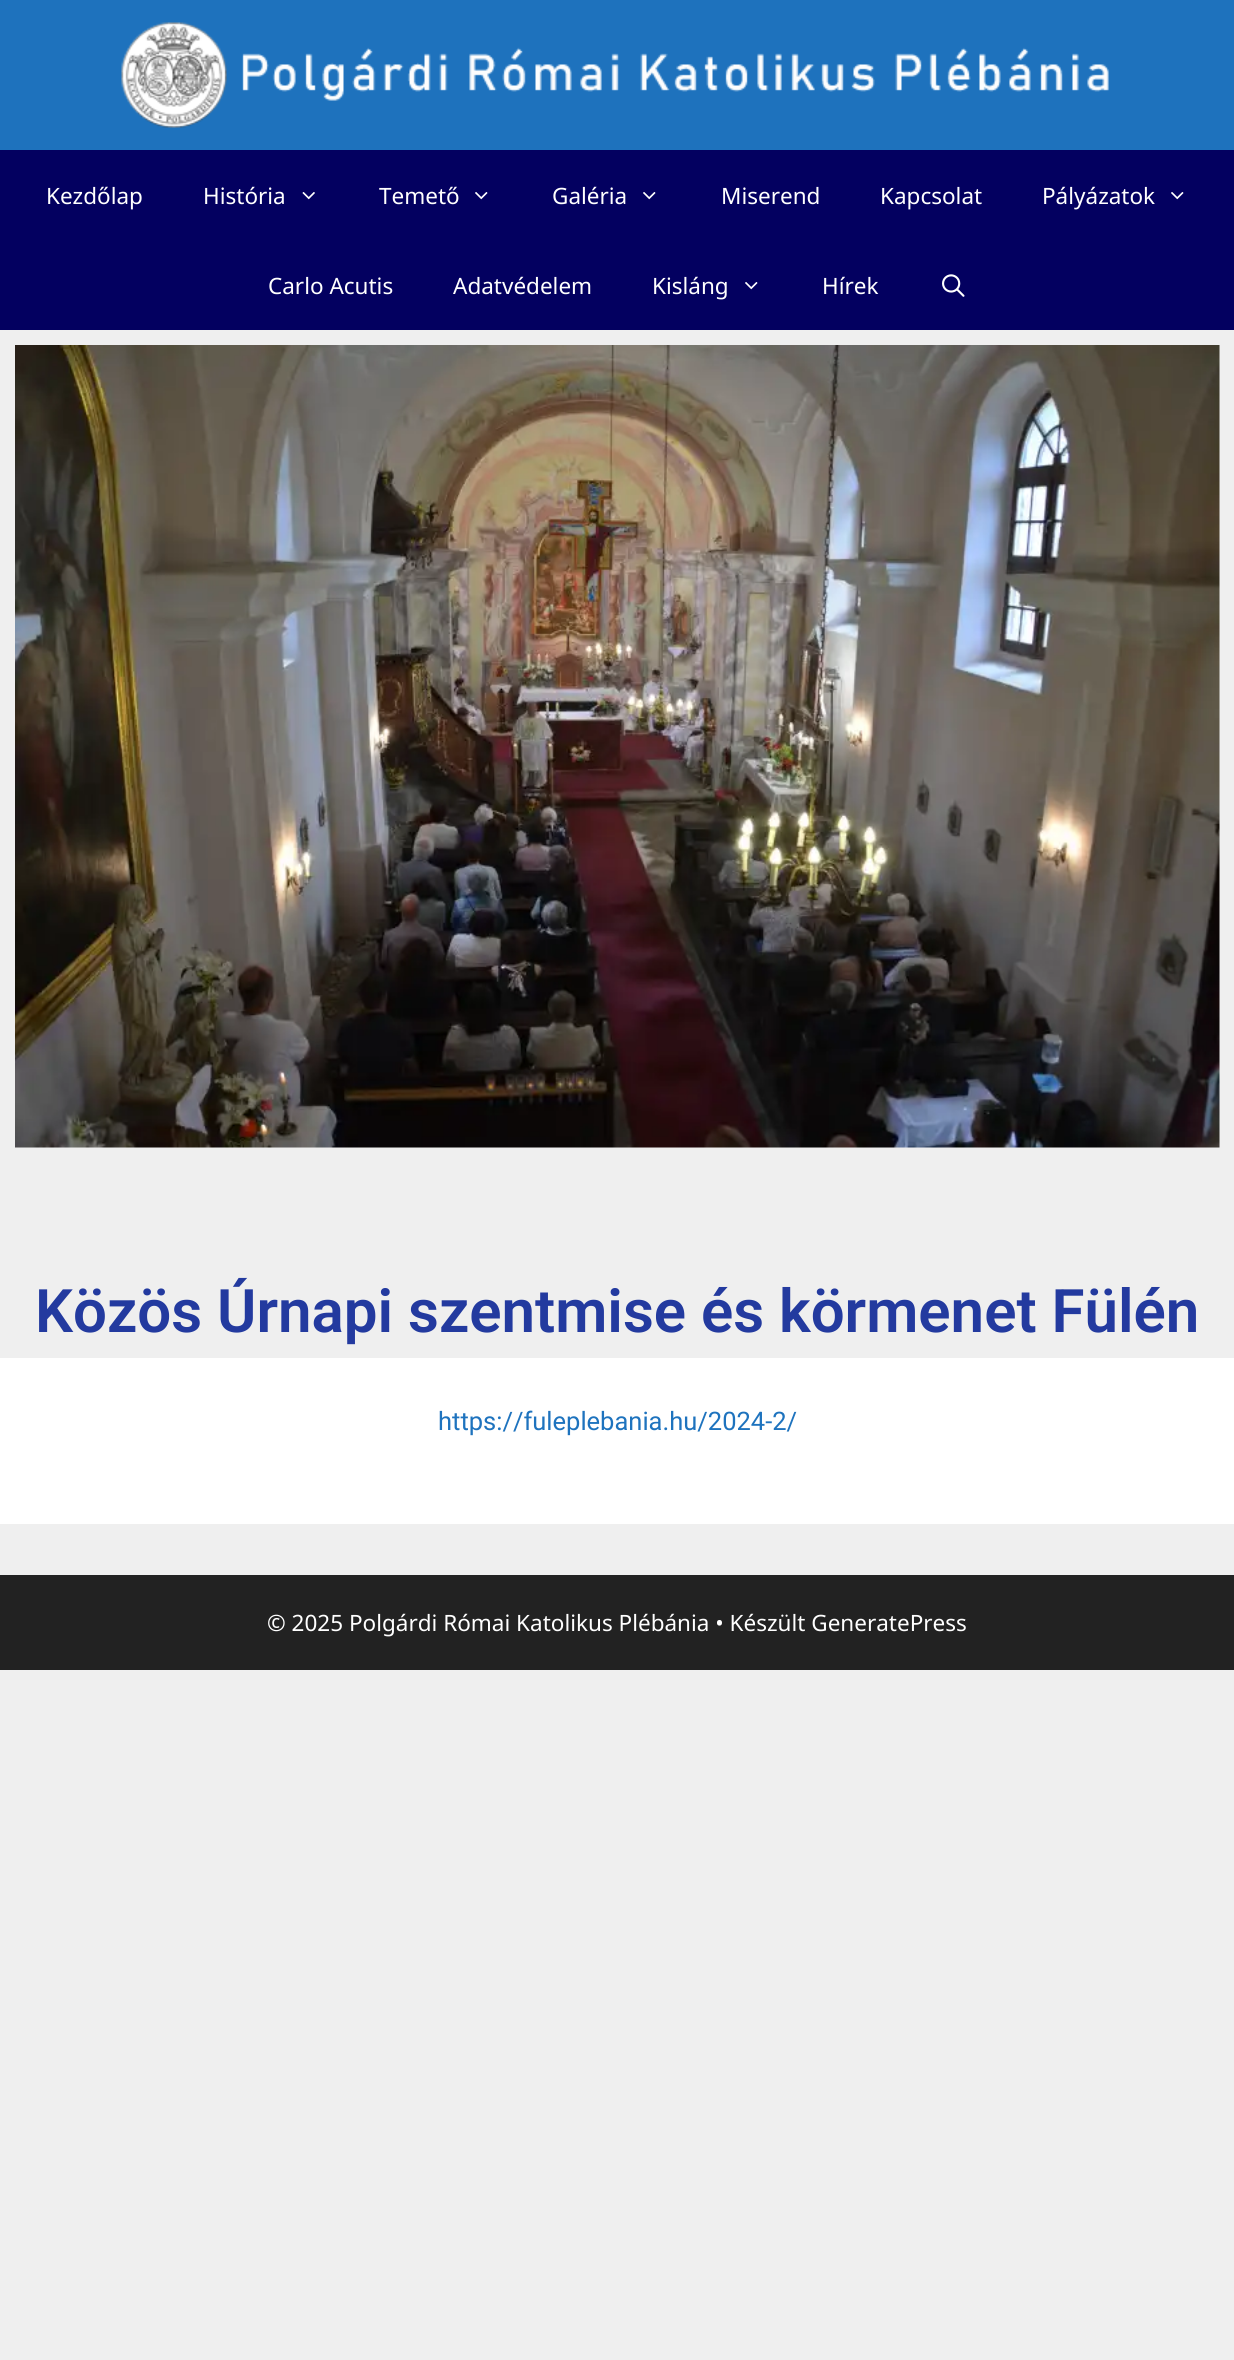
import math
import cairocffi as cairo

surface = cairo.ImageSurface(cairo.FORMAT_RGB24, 1234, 2360)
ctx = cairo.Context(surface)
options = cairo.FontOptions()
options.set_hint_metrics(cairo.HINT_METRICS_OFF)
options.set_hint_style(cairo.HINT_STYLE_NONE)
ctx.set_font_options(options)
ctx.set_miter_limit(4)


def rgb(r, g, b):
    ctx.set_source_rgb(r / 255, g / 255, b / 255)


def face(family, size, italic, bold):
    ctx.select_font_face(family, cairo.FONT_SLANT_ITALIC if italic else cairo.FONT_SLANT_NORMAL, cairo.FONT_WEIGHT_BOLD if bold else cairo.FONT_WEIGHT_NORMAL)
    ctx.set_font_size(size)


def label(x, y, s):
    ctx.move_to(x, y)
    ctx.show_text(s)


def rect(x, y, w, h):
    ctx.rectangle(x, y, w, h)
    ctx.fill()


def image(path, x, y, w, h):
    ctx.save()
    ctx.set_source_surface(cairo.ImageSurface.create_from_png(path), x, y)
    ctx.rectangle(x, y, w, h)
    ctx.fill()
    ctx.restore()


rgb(239, 239, 239)
ctx.paint()
rgb(30, 114, 189)
rect(0, 0, 1234, 150)
image('image0.png', 121, 22, 988, 106)
rgb(3, 0, 96)
rect(0, 150, 1234, 180)
face('Noto Sans', 22.5, 0, 0)
rgb(255, 255, 255)
label(46, 204, 'Kezdőlap')
label(203, 204, 'História')
image('image1.png', 302, 192, 13, 8)
label(379, 204, 'Temető')
image('image2.png', 475, 192, 13, 8)
label(552, 204, 'Galéria')
image('image2.png', 643, 192, 13, 8)
label(721, 204, 'Miserend')
label(880, 204, 'Kapcsolat')
label(1042, 204, 'Pályázatok')
image('image2.png', 1171, 192, 13, 8)
label(268, 294, 'Carlo Acutis')
label(453, 294, 'Adatvédelem')
label(652, 294, 'Kisláng')
image('image2.png', 745, 282, 13, 8)
label(822, 294, 'Hírek')
image('image3.png', 942, 274, 23, 23)
image('image4.png', 15, 345, 1205, 803)
face('Roboto SemiBold', 60, 0, 0)
rgb(35, 58, 159)
label(35, 1332, 'Közös Úrnapi szentmise és körmenet Fülén')
rgb(255, 255, 255)
rect(0, 1358, 1234, 166)
face('Roboto', 25.5, 0, 0)
rgb(30, 115, 190)
label(438, 1430, 'https://fuleplebania.hu/2024-2/')
rgb(34, 34, 34)
rect(0, 1575, 1234, 95)
face('Noto Sans', 22.5, 0, 0)
rgb(255, 255, 255)
label(267, 1631, '© 2025 Polgárdi Római Katolikus Plébánia • Készült GeneratePress')
surface.write_to_png('render.png')
